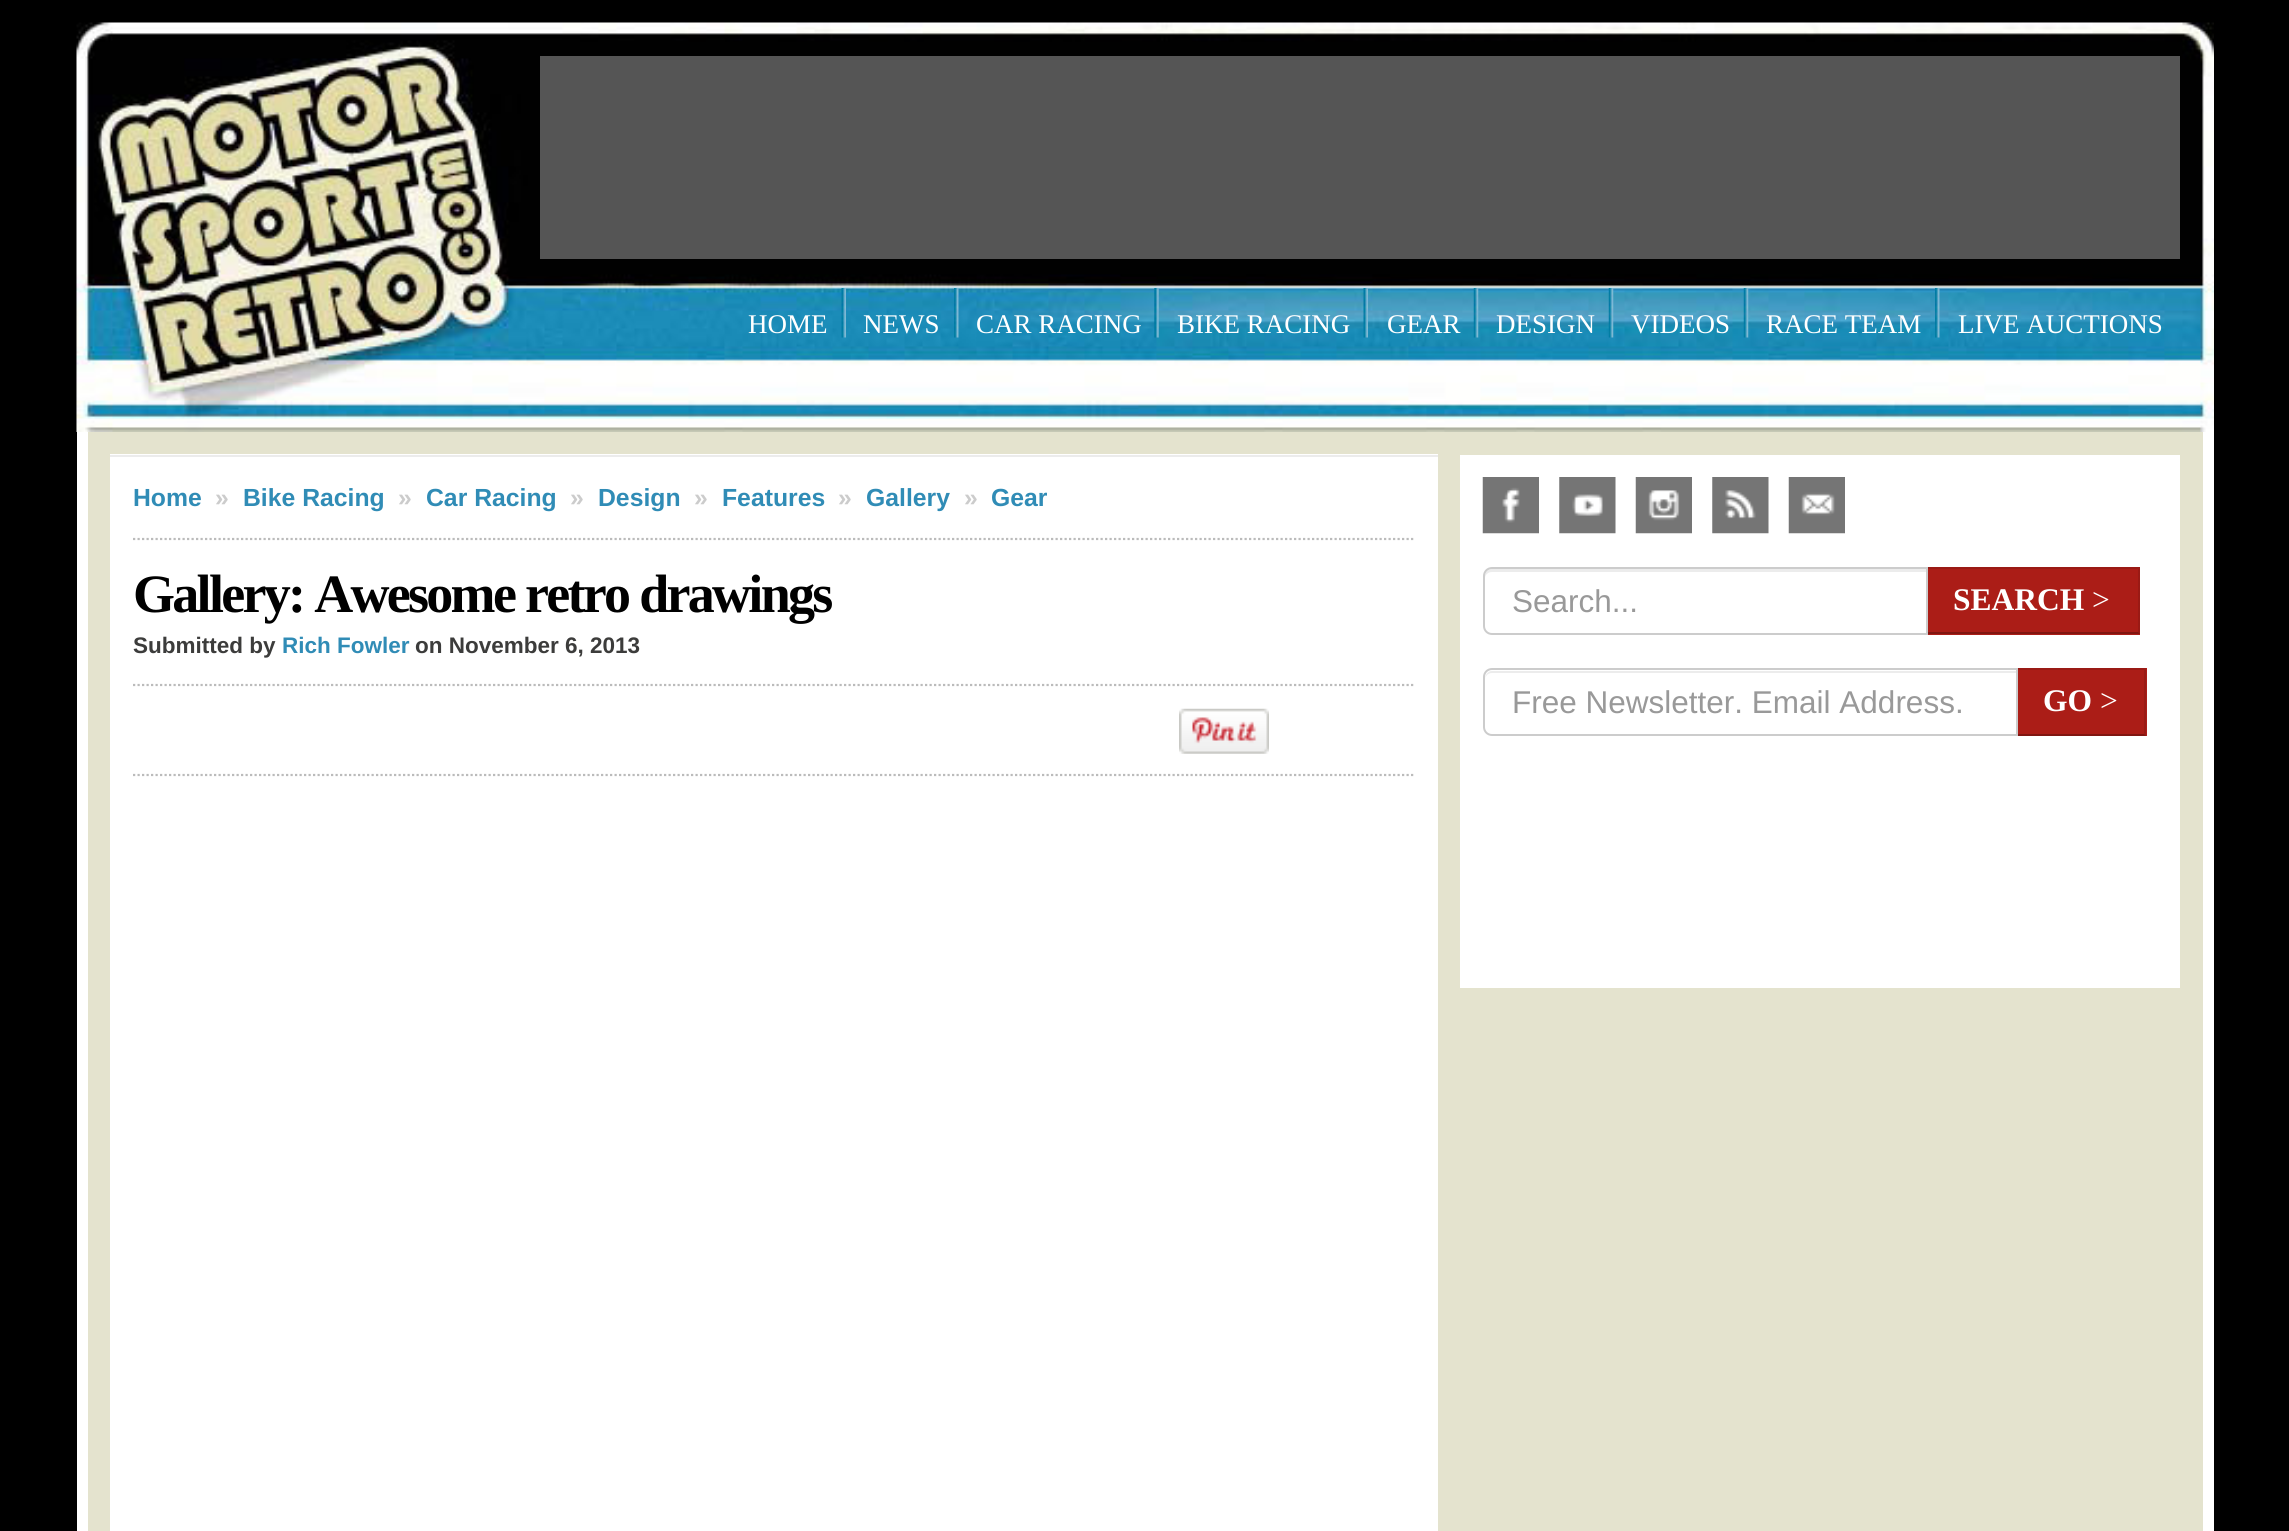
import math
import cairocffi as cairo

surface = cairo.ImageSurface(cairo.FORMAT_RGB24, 2289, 1531)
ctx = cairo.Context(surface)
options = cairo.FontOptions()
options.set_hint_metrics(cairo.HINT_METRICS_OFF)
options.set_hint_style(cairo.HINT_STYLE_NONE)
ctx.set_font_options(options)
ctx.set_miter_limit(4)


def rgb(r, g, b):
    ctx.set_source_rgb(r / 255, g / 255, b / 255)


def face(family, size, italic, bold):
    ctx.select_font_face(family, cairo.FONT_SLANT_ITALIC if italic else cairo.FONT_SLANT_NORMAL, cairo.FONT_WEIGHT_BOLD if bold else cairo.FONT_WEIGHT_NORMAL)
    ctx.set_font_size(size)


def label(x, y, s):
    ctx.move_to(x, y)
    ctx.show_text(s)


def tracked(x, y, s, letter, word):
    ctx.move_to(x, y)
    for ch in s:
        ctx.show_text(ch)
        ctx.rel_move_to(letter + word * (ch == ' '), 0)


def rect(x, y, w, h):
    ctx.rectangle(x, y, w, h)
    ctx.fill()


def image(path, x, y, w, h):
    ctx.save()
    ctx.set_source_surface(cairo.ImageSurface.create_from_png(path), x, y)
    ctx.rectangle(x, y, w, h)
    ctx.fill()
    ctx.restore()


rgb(0, 0, 0)
ctx.paint()
image('image0.png', 76, 22, 2138, 410)
rgb(85, 85, 85)
rect(540, 56, 1640, 203)
image('image1.png', 841, 288, 5, 50)
face('Liberation Serif', 27, 0, 0)
rgb(255, 255, 255)
label(748, 333, 'HOME')
image('image2.png', 954, 288, 5, 50)
label(863, 333, 'NEWS')
image('image3.png', 1154, 288, 5, 50)
label(976, 333, 'CAR RACING')
image('image4.png', 1363, 288, 5, 50)
label(1177, 333, 'BIKE RACING')
image('image5.png', 1473, 288, 6, 50)
label(1387, 333, 'GEAR')
image('image6.png', 1608, 288, 6, 50)
label(1496, 333, 'DESIGN')
image('image7.png', 1743, 288, 6, 50)
label(1631, 333, 'VIDEOS')
image('image8.png', 1935, 288, 5, 50)
label(1766, 333, 'RACE TEAM')
label(1958, 333, 'LIVE AUCTIONS')
rgb(228, 227, 206)
rect(88, 432, 2115, 1099)
rgb(255, 255, 255)
rect(2203, 432, 11, 1099)
rect(77, 432, 11, 1099)
rect(110, 454, 1328, 1077)
rgb(236, 236, 236)
rect(110, 455, 1328, 2)
face('Liberation Sans', 24.75, 0, 1)
rgb(48, 140, 182)
label(133, 506, 'Home')
rgb(204, 204, 204)
label(215, 506, '»')
rgb(48, 140, 182)
label(243, 506, 'Bike Racing')
rgb(204, 204, 204)
label(398, 506, '»')
rgb(48, 140, 182)
label(426, 506, 'Car Racing')
rgb(204, 204, 204)
label(570, 506, '»')
rgb(48, 140, 182)
label(598, 506, 'Design')
rgb(204, 204, 204)
label(694, 506, '»')
rgb(48, 140, 182)
label(722, 506, 'Features')
rgb(204, 204, 204)
label(838, 506, '»')
rgb(48, 140, 182)
label(866, 506, 'Gallery')
rgb(204, 204, 204)
label(964, 506, '»')
rgb(48, 140, 182)
label(991, 506, 'Gear')
ctx.new_path()
ctx.move_to(133, 539)
ctx.line_to(1415, 539)
rgb(187, 187, 187)
ctx.set_line_width(2.2)
ctx.set_dash([2.25, 2.25])
ctx.stroke()
face('Liberation Serif', 54, 0, 1)
rgb(0, 0, 0)
tracked(133, 612, 'Gallery: Awesome retro drawings', -2.7, 0)
ctx.new_path()
ctx.move_to(133, 685)
ctx.line_to(1415, 685)
rgb(187, 187, 187)
ctx.stroke()
face('Liberation Sans', 22.5, 0, 1)
rgb(60, 60, 59)
label(133, 653, 'Submitted by')
rgb(48, 140, 182)
label(282, 653, 'Rich Fowler')
rgb(60, 60, 59)
label(415, 653, 'on November 6, 2013')
ctx.new_path()
ctx.move_to(133, 775)
ctx.line_to(1415, 775)
rgb(187, 187, 187)
ctx.stroke()
image('image9.png', 1179, 708, 90, 46)
rgb(255, 255, 255)
rect(1460, 455, 720, 533)
image('image10.png', 1482, 477, 57, 57)
image('image11.png', 1559, 477, 57, 57)
image('image12.png', 1635, 477, 57, 57)
image('image13.png', 1712, 477, 57, 57)
image('image14.png', 1788, 477, 57, 57)
rgb(171, 29, 23)
rect(1928, 567, 212, 68)
rgb(154, 26, 21)
ctx.new_path()
ctx.move_to(1924, 567)
ctx.line_to(2140, 567)
ctx.line_to(2138, 569)
ctx.line_to(1926, 569)
ctx.close_path()
ctx.fill()
ctx.set_source_rgba(0, 0, 0, 0.1)
ctx.new_path()
ctx.move_to(2140, 567)
ctx.line_to(2140, 634)
ctx.line_to(2138, 632)
ctx.line_to(2138, 569)
ctx.close_path()
ctx.fill()
ctx.set_source_rgba(0, 0, 0, 0.25)
ctx.new_path()
ctx.move_to(2140, 634)
ctx.line_to(1924, 634)
ctx.line_to(1926, 632)
ctx.line_to(2138, 632)
ctx.close_path()
ctx.fill()
rgb(255, 255, 255)
ctx.new_path()
ctx.move_to(1492, 567)
ctx.line_to(1928, 567)
ctx.line_to(1928, 635)
ctx.line_to(1492, 635)
ctx.curve_to(1487, 635, 1483, 631, 1483, 626)
ctx.line_to(1483, 576)
ctx.curve_to(1483, 571, 1487, 567, 1492, 567)
ctx.close_path()
ctx.fill()
rgb(236, 236, 236)
ctx.new_path()
ctx.move_to(1492, 572)
ctx.line_to(1926, 572)
ctx.line_to(1926, 569)
ctx.line_to(1492, 569)
ctx.curve_to(1488, 569, 1485, 572, 1485, 576)
ctx.line_to(1485, 578)
ctx.curve_to(1485, 575, 1488, 572, 1492, 572)
ctx.close_path()
ctx.fill()
ctx.new_path()
ctx.move_to(1492, 568)
ctx.line_to(1927, 568)
ctx.line_to(1927, 634)
ctx.line_to(1492, 634)
ctx.curve_to(1487.5, 634, 1484, 630.5, 1484, 626)
ctx.line_to(1484, 576)
ctx.curve_to(1484, 571.5, 1487.5, 568, 1492, 568)
ctx.close_path()
rgb(204, 204, 204)
ctx.set_line_width(2)
ctx.set_dash([])
ctx.stroke()
face('Liberation Sans', 31.5, 0, 0)
rgb(153, 153, 153)
label(1512, 612, 'Search...')
face('Liberation Serif', 31.5, 0, 1)
rgb(255, 255, 255)
label(1953, 610, 'SEARCH')
face('Liberation Serif', 31.5, 0, 0)
label(2092, 610, '>')
rgb(171, 29, 23)
rect(2018, 668, 129, 68)
rgb(154, 26, 21)
ctx.new_path()
ctx.move_to(2014, 668)
ctx.line_to(2146, 668)
ctx.line_to(2144, 670)
ctx.line_to(2016, 670)
ctx.close_path()
ctx.fill()
ctx.set_source_rgba(0, 0, 0, 0.1)
ctx.new_path()
ctx.move_to(2146, 668)
ctx.line_to(2146, 736)
ctx.line_to(2144, 734)
ctx.line_to(2144, 670)
ctx.close_path()
ctx.fill()
ctx.set_source_rgba(0, 0, 0, 0.25)
ctx.new_path()
ctx.move_to(2146, 736)
ctx.line_to(2014, 736)
ctx.line_to(2016, 734)
ctx.line_to(2144, 734)
ctx.close_path()
ctx.fill()
rgb(255, 255, 255)
ctx.new_path()
ctx.move_to(1492, 668)
ctx.line_to(2018, 668)
ctx.line_to(2018, 736)
ctx.line_to(1492, 736)
ctx.curve_to(1487, 736, 1483, 732, 1483, 727)
ctx.line_to(1483, 677)
ctx.curve_to(1483, 672, 1487, 668, 1492, 668)
ctx.close_path()
ctx.fill()
rgb(236, 236, 236)
ctx.new_path()
ctx.move_to(1492, 673)
ctx.line_to(2016, 673)
ctx.line_to(2016, 671)
ctx.line_to(1492, 671)
ctx.curve_to(1487, 671, 1485, 676, 1485, 680)
ctx.curve_to(1485, 676, 1488, 673, 1492, 673)
ctx.close_path()
ctx.fill()
ctx.new_path()
ctx.move_to(1492, 669)
ctx.line_to(2017, 669)
ctx.line_to(2017, 735)
ctx.line_to(1492, 735)
ctx.curve_to(1487.5, 735, 1484, 731.5, 1484, 727)
ctx.line_to(1484, 677)
ctx.curve_to(1484, 672.5, 1487.5, 669, 1492, 669)
ctx.close_path()
rgb(204, 204, 204)
ctx.stroke()
face('Liberation Sans', 31.5, 0, 0)
rgb(153, 153, 153)
label(1512, 713, 'Free Newsletter. Email Address.')
face('Liberation Serif', 31.5, 0, 1)
rgb(255, 255, 255)
label(2043, 711, 'GO')
face('Liberation Serif', 31.5, 0, 0)
label(2100, 711, '>')
surface.write_to_png('render.png')
